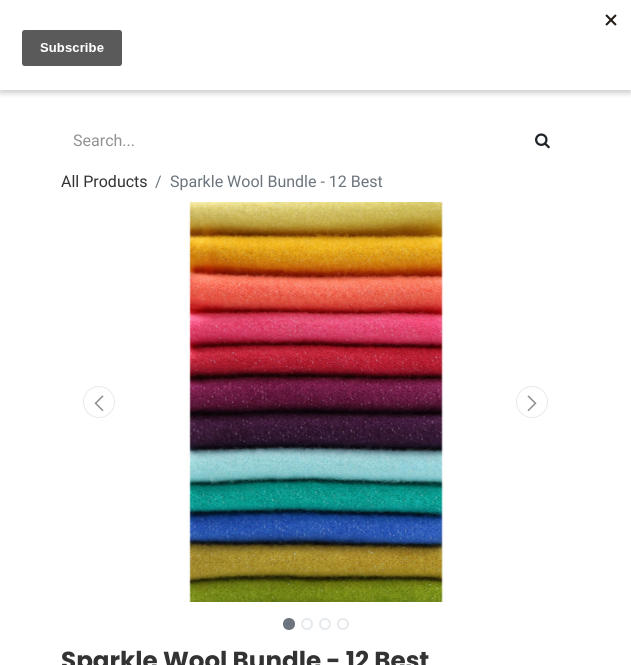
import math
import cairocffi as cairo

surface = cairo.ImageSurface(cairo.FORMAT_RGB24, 631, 665)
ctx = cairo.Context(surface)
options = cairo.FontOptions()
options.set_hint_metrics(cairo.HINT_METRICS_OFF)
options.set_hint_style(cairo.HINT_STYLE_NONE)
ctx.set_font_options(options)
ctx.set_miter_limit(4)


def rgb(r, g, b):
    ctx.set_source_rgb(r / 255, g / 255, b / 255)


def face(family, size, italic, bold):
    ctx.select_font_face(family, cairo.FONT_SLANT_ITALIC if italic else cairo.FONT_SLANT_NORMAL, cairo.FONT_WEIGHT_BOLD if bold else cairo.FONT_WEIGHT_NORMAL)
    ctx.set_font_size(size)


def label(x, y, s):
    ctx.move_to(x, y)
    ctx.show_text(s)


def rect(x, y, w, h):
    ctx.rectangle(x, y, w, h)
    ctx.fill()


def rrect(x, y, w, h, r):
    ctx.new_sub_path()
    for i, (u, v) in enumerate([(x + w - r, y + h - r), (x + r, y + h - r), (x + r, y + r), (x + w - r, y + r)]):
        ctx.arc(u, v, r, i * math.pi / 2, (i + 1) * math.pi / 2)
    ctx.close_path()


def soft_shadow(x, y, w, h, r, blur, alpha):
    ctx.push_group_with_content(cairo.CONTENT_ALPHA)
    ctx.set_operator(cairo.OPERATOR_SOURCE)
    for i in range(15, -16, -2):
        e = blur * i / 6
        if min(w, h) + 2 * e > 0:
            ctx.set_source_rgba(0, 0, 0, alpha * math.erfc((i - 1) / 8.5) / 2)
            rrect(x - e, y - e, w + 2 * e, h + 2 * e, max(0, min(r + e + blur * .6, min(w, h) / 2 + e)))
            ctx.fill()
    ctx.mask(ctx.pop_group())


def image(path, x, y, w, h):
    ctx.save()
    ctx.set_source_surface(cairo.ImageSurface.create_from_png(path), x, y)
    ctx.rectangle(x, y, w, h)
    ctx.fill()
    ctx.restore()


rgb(255, 255, 255)
ctx.paint()
rgb(0, 0, 0)
soft_shadow(0, 3, 631, 90, 0, 3, 0.2)
rgb(255, 255, 255)
rect(0, 0, 631, 90)
image('image0.png', 22, 14, 595, 52)
face('Heebo', 16, 0, 0)
rgb(144, 146, 148)
label(73, 146, 'Search...')
image('image1.png', 535, 133, 15, 16)
rgb(51, 51, 51)
label(61, 187, 'All Products')
rgb(108, 117, 125)
label(155, 187, '/')
label(170, 187, 'Sparkle Wool Bundle - 12 Best')
ctx.new_path()
ctx.arc(99, 402, 15.5, 0, 2 * math.pi)
rgb(231, 234, 237)
ctx.set_line_width(1)
ctx.stroke()
image('image2.png', 94, 395, 10, 17)
image('image3.png', 187, 202, 257, 400)
ctx.arc(532, 402, 15.5, 0, 2 * math.pi)
ctx.stroke()
image('image4.png', 527, 395, 10, 17)
rgb(108, 117, 125)
ctx.arc(289, 624, 5, 0, 2 * math.pi)
ctx.fill_preserve()
ctx.set_line_width(2)
ctx.stroke()
ctx.arc(307, 624, 5, 0, 2 * math.pi)
rgb(231, 234, 237)
ctx.stroke()
ctx.arc(325, 624, 5, 0, 2 * math.pi)
ctx.stroke()
ctx.arc(343, 624, 5, 0, 2 * math.pi)
ctx.stroke()
face('Poppins', 24.6, 0, 1)
rgb(51, 51, 51)
label(61, 669, 'Sparkle Wool Bundle - 12 Best')
surface.write_to_png('render.png')
